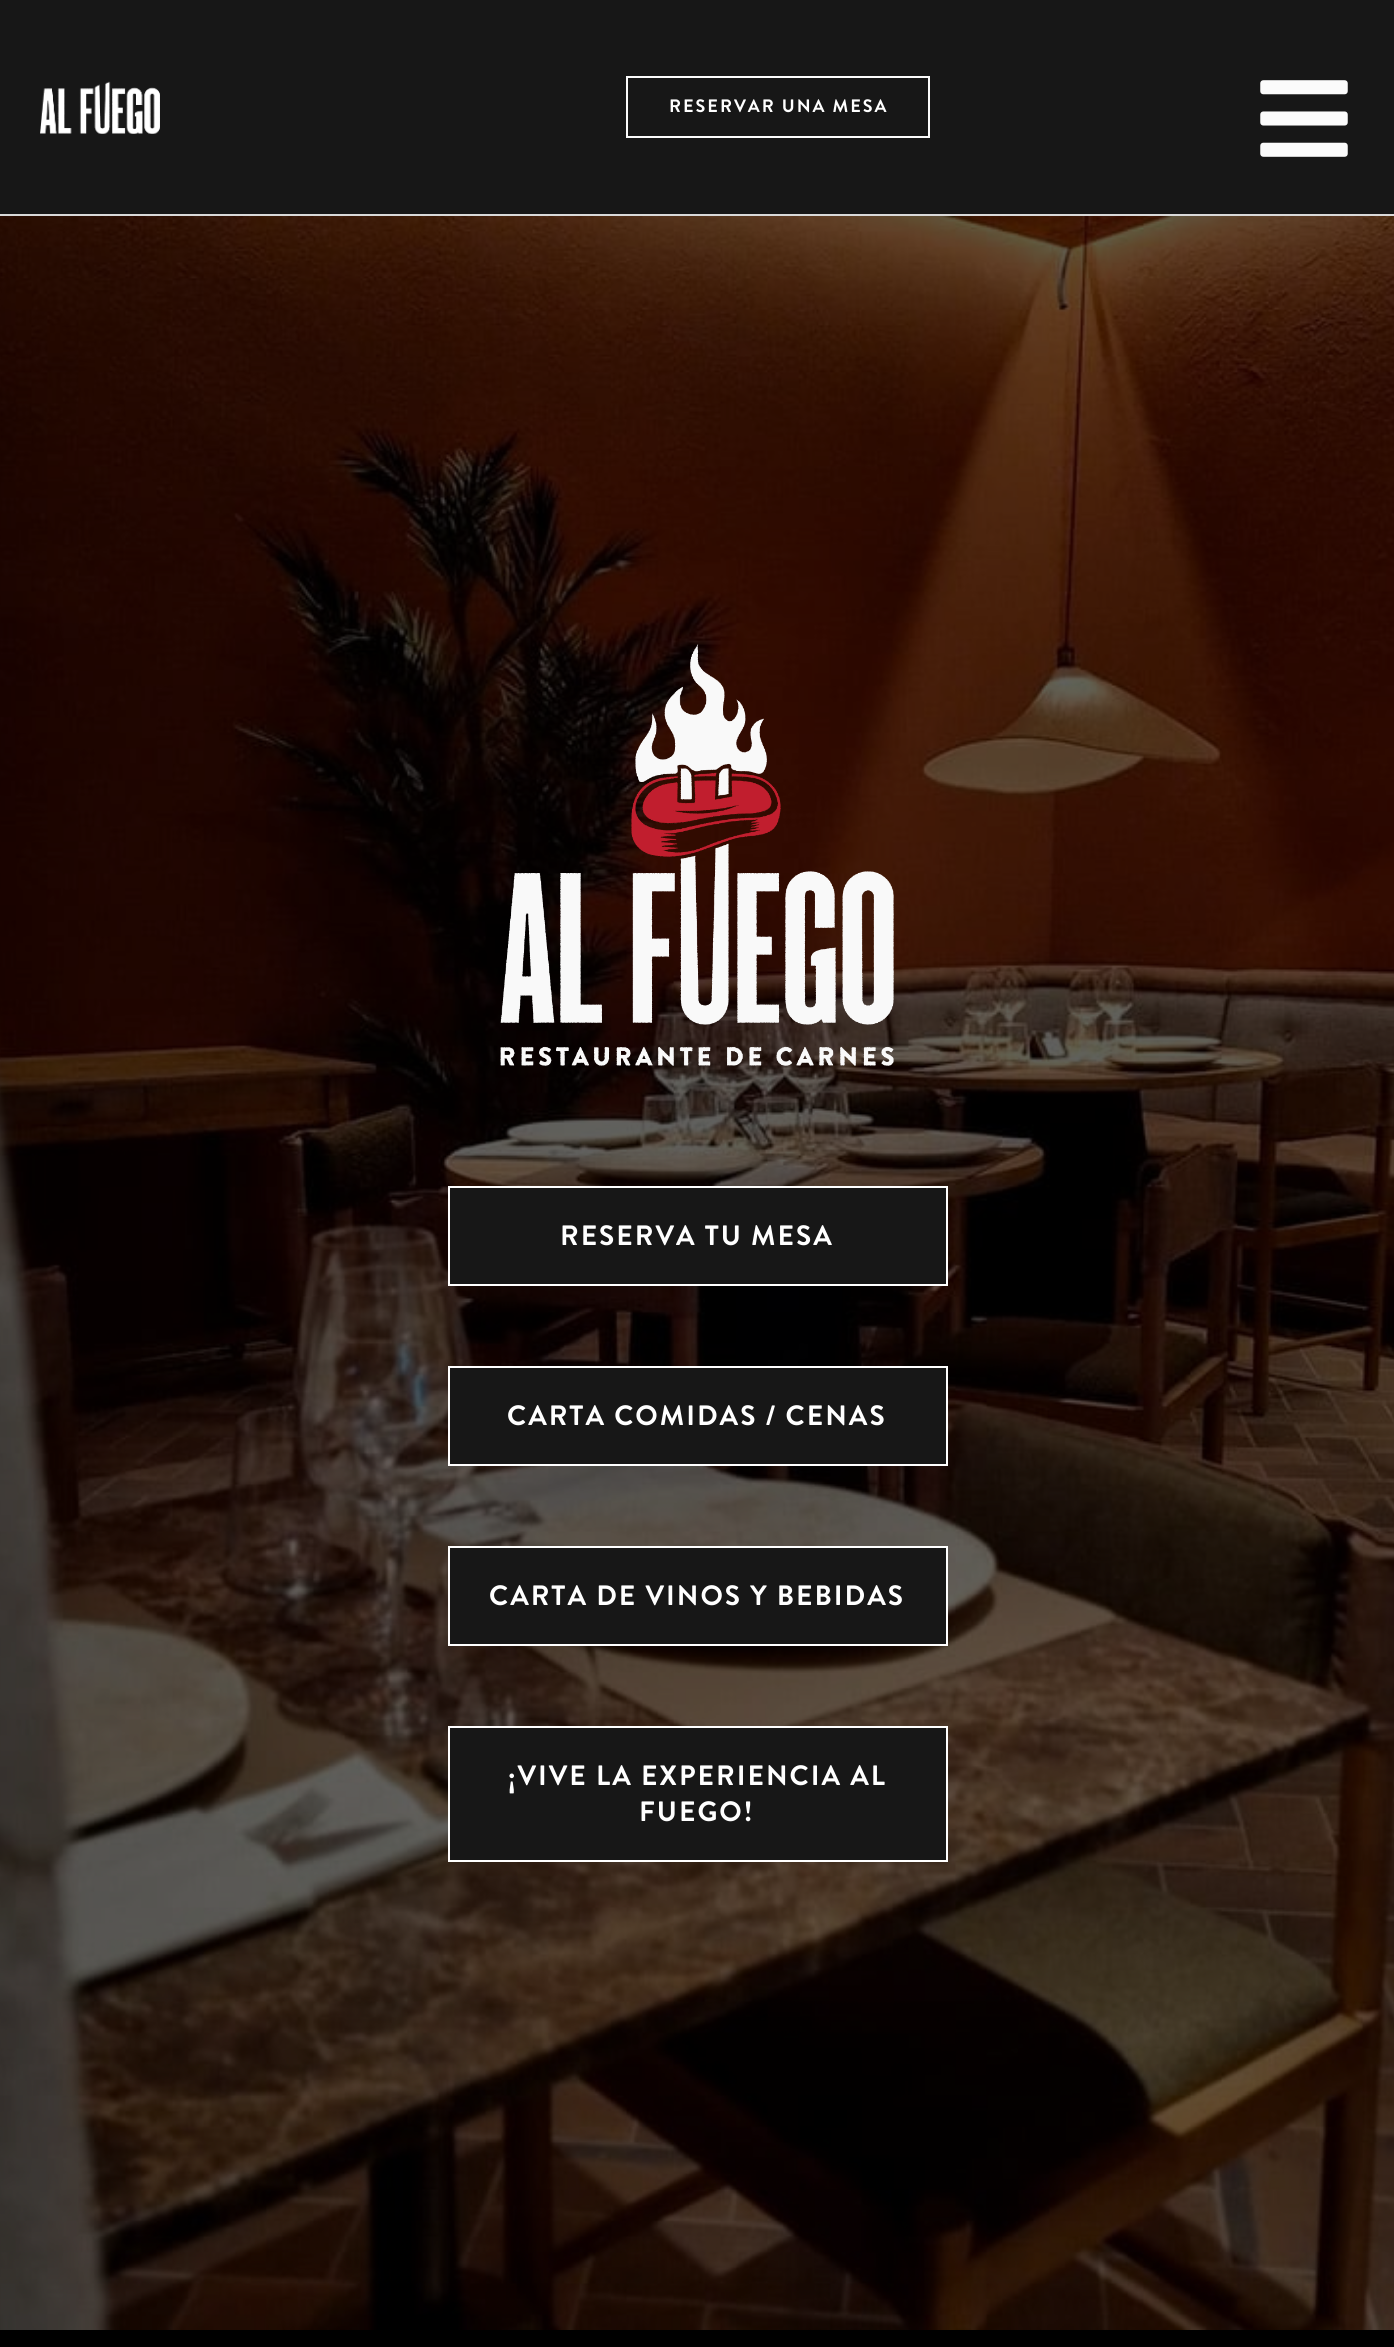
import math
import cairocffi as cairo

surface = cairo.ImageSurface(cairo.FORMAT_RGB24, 1394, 2347)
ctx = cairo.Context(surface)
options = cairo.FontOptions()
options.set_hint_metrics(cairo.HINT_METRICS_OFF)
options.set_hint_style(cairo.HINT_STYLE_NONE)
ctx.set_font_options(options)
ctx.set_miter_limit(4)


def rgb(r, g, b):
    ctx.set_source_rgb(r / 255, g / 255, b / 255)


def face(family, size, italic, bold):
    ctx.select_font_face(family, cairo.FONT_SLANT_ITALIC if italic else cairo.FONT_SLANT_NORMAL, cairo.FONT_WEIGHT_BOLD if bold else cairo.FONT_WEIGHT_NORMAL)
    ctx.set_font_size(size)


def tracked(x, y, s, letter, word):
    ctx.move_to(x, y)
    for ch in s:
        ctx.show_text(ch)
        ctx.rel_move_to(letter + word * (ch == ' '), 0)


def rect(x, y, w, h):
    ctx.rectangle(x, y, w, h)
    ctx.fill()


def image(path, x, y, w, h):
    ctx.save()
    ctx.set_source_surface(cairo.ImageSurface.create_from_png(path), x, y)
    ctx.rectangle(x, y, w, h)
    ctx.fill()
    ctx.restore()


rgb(0, 0, 0)
ctx.paint()
rgb(23, 23, 23)
rect(0, 0, 1394, 214)
rgb(217, 217, 217)
rect(0, 214, 1394, 2)
image('image0.png', 40, 81, 120, 53)
ctx.rectangle(627, 77, 302, 60)
rgb(251, 251, 251)
ctx.stroke()
face('Brandon Grotesque', 18, 0, 1)
rgb(255, 255, 255)
tracked(669, 112, 'RESERVAR UNA MESA', 2, 0)
image('image1.png', 1260, 80, 88, 77)
image('image2.png', 0, 216, 1394, 2114)
image('image3.png', 500, 644, 394, 422)
rgb(23, 23, 23)
ctx.rectangle(449, 1187, 498, 98)
ctx.fill_preserve()
rgb(255, 255, 255)
ctx.stroke()
face('Brandon Grotesque', 28, 0, 1)
tracked(560, 1245, 'RESERVA TU MESA', 2, 0)
rgb(23, 23, 23)
ctx.rectangle(449, 1367, 498, 98)
ctx.fill_preserve()
rgb(255, 255, 255)
ctx.stroke()
tracked(507, 1425, 'CARTA COMIDAS / CENAS', 2, 0)
rgb(23, 23, 23)
ctx.rectangle(449, 1547, 498, 98)
ctx.fill_preserve()
rgb(255, 255, 255)
ctx.stroke()
tracked(489, 1605, 'CARTA DE VINOS Y BEBIDAS', 2, 0)
rgb(23, 23, 23)
ctx.rectangle(449, 1727, 498, 134)
ctx.fill_preserve()
rgb(255, 255, 255)
ctx.stroke()
tracked(508, 1785, '¡VIVE LA EXPERIENCIA AL', 2, 0)
tracked(639, 1821, 'FUEGO!', 2, 0)
surface.write_to_png('render.png')
